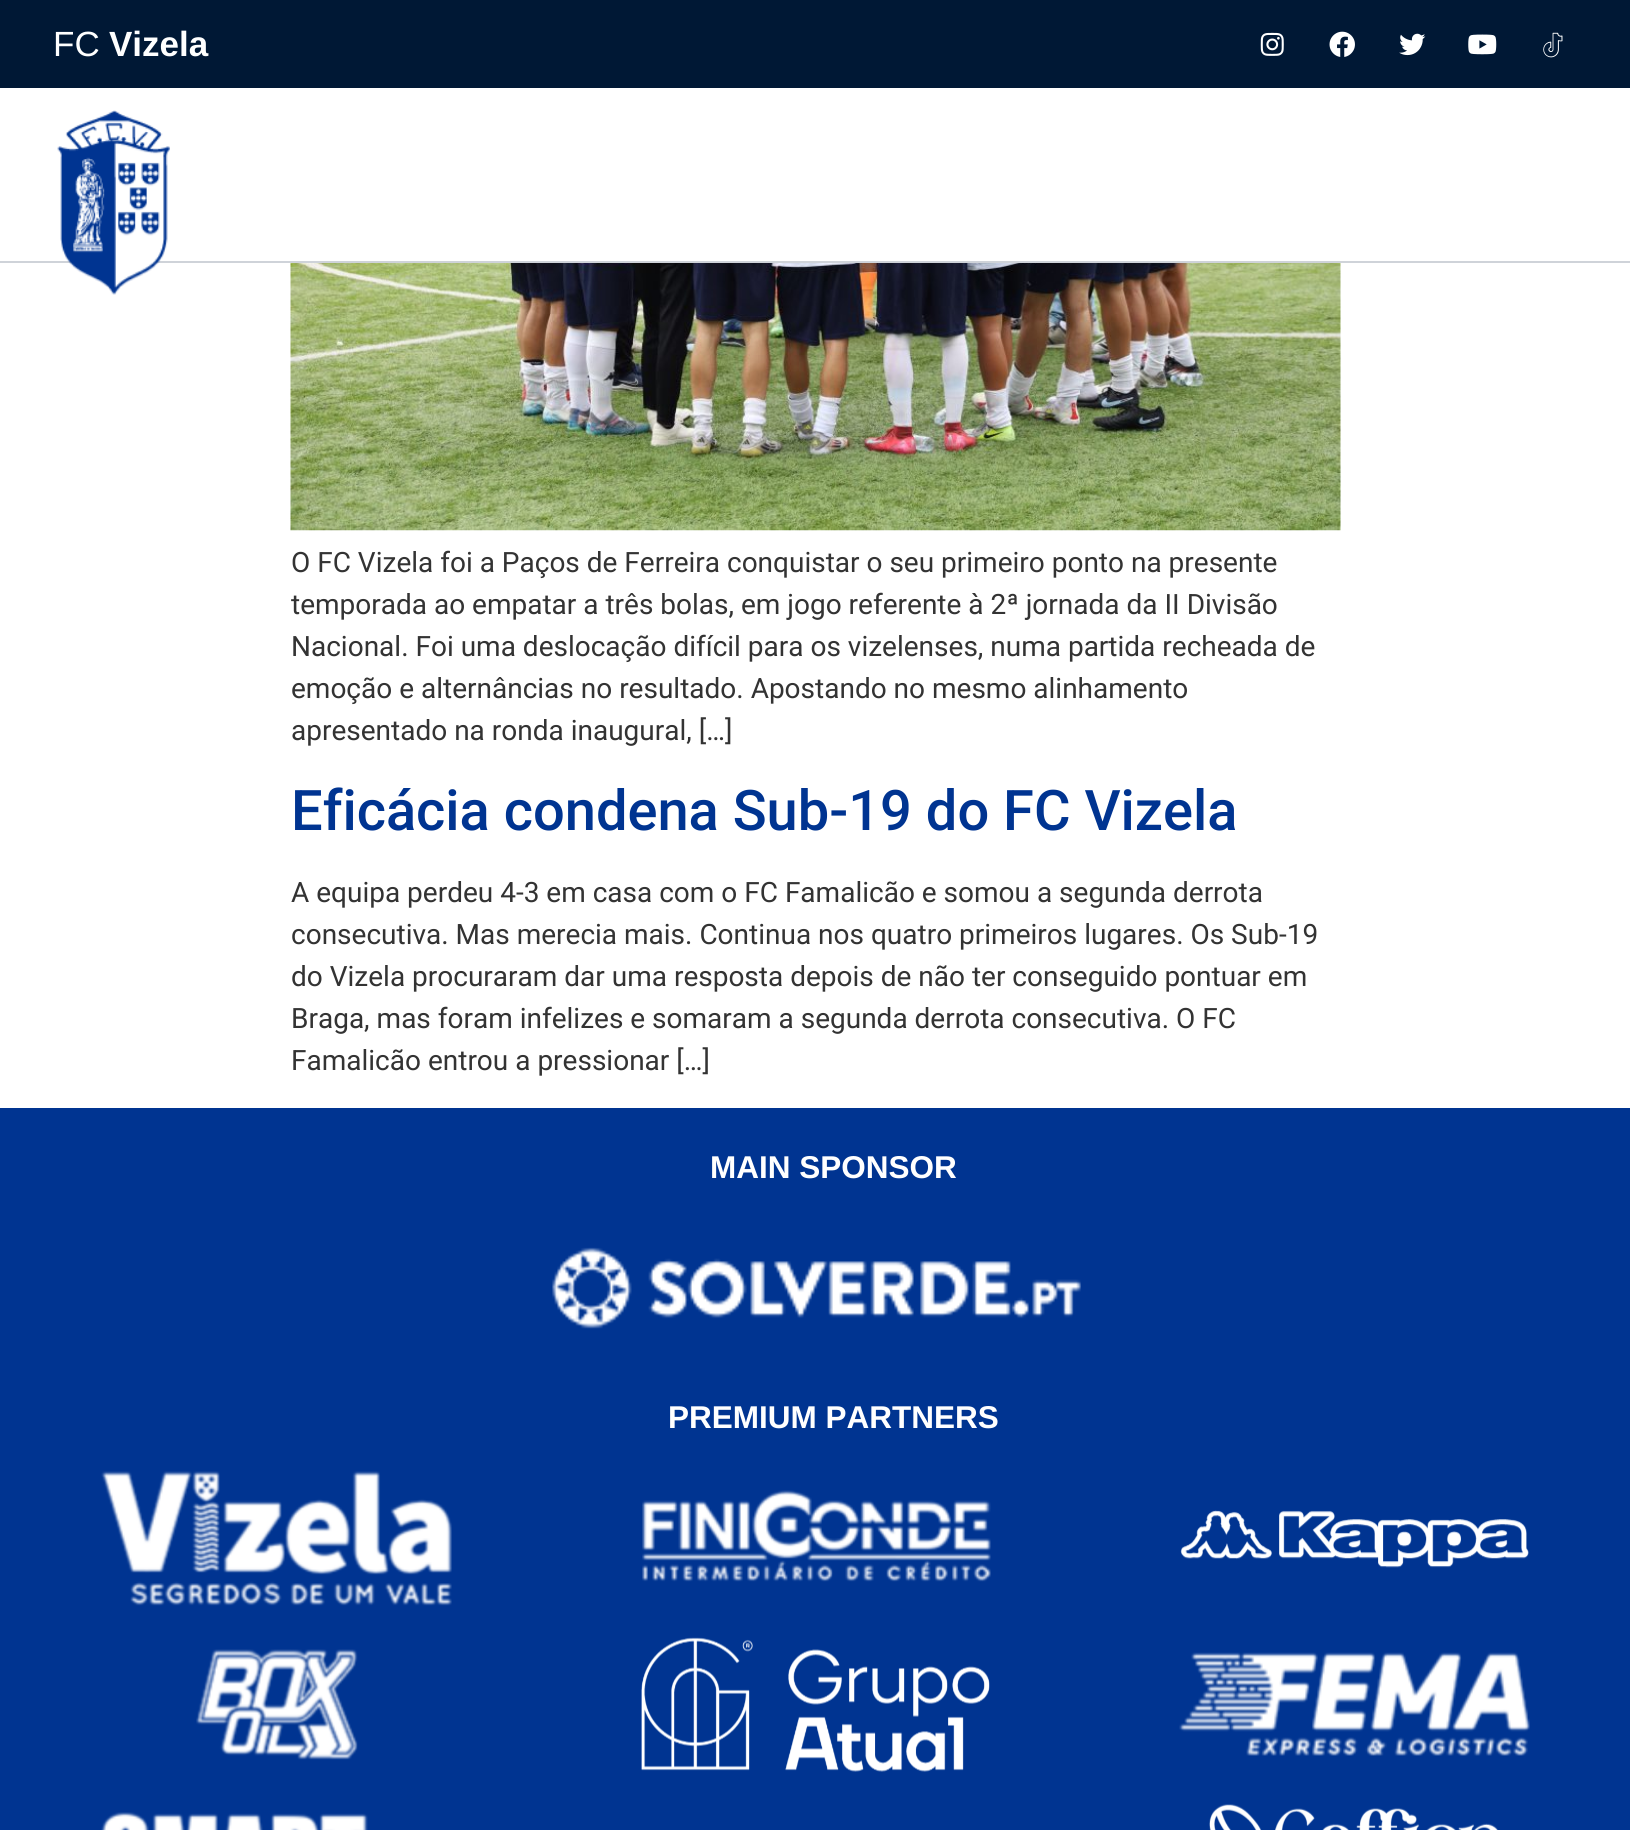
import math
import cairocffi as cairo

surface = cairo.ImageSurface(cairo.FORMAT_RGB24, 1630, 1830)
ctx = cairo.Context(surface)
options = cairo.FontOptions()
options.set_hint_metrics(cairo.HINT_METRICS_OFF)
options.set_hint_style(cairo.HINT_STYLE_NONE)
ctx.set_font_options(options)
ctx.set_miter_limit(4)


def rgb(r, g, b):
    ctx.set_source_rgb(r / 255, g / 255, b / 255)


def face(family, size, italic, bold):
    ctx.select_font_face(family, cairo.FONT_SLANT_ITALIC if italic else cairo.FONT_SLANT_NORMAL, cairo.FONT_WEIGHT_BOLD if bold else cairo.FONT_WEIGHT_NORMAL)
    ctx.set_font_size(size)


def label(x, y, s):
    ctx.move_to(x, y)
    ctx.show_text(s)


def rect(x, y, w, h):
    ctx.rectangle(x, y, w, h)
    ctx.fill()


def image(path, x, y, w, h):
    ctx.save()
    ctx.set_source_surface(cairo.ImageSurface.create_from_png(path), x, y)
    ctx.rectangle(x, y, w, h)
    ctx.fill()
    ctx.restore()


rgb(255, 255, 255)
ctx.paint()
rgb(0, 24, 53)
rect(0, 0, 1630, 88)
face('Liberation Sans', 35, 0, 0)
rgb(255, 255, 255)
label(53, 56, 'FC')
face('Liberation Sans', 35, 0, 1)
label(109, 56, 'Vizela')
image('image0.png', 1260, 32, 24, 24)
image('image1.png', 1329, 31, 26, 26)
image('image2.png', 1399, 33, 27, 23)
image('image3.png', 1468, 34, 29, 21)
image('image4.png', 1543, 32, 20, 26)
rgb(207, 211, 217)
rect(0, 261, 1630, 2)
image('image5.png', 57, 110, 113, 185)
image('image6.png', 290, 263, 1051, 268)
face('Roboto', 28, 0, 0)
rgb(51, 51, 51)
label(291, 572, 'O FC Vizela foi a Paços de Ferreira conquistar o seu primeiro ponto na presente')
label(291, 614, 'temporada ao empatar a três bolas, em jogo referente à 2ª jornada da II Divisão')
label(291, 656, 'Nacional. Foi uma deslocação difícil para os vizelenses, numa partida recheada de')
label(291, 698, 'emoção e alternâncias no resultado. Apostando no mesmo alinhamento')
label(291, 740, 'apresentado na ronda inaugural, […]')
face('Roboto Medium', 56, 0, 0)
rgb(0, 52, 145)
label(291, 830, 'Eficácia condena Sub-19 do FC Vizela')
face('Roboto', 28, 0, 0)
rgb(51, 51, 51)
label(291, 902, 'A equipa perdeu 4-3 em casa com o FC Famalicão e somou a segunda derrota')
label(291, 944, 'consecutiva. Mas merecia mais. Continua nos quatro primeiros lugares. Os Sub-19')
label(291, 986, 'do Vizela procuraram dar uma resposta depois de não ter conseguido pontuar em')
label(291, 1028, 'Braga, mas foram infelizes e somaram a segunda derrota consecutiva. O FC')
label(291, 1070, 'Famalicão entrou a pressionar […]')
rgb(0, 52, 145)
rect(0, 1108, 1630, 722)
face('Liberation Sans', 31.5, 0, 1)
rgb(255, 255, 255)
label(710, 1178, 'MAIN SPONSOR')
image('image7.png', 552, 1247, 529, 82)
label(668, 1428, 'PREMIUM PARTNERS')
image('image8.png', 101, 1471, 351, 135)
image('image9.png', 642, 1490, 349, 92)
image('image10.png', 1180, 1510, 349, 58)
image('image11.png', 196, 1649, 162, 111)
image('image12.png', 641, 1637, 349, 135)
image('image13.png', 1179, 1652, 351, 104)
image('image14.png', 101, 1812, 267, 18)
image('image15.png', 1209, 1804, 289, 26)
surface.write_to_png('render.png')
